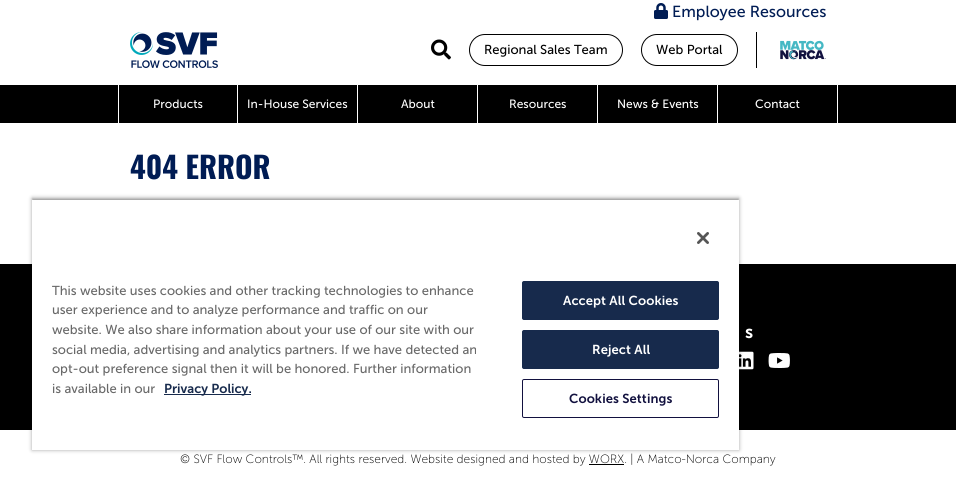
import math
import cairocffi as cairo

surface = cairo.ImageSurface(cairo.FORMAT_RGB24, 956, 482)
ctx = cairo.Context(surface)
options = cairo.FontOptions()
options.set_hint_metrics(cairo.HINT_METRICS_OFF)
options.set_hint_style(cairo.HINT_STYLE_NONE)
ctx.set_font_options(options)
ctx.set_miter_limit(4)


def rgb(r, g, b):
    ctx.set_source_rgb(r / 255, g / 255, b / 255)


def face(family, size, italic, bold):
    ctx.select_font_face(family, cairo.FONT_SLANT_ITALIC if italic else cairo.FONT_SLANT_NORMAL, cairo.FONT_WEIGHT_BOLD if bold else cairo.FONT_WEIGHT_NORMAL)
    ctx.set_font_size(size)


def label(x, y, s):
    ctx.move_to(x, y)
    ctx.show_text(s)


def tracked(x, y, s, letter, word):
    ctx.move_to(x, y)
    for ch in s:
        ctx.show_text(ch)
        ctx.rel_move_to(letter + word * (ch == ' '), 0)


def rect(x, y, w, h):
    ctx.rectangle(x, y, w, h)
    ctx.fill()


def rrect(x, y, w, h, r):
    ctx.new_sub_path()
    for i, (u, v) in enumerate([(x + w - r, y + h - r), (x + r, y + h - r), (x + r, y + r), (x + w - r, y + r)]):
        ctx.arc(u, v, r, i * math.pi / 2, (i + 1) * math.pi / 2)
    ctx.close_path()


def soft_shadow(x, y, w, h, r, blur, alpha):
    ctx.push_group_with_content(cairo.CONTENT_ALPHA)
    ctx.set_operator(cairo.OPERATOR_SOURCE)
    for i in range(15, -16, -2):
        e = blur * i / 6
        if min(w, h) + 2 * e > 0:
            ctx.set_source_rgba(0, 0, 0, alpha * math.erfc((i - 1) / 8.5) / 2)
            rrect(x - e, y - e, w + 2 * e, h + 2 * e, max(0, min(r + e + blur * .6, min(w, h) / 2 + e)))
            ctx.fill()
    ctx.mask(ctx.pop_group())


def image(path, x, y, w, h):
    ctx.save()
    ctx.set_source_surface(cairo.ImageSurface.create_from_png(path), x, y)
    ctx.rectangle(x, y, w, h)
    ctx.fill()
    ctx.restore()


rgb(255, 255, 255)
ctx.paint()
image('image0.png', 654, 3, 14, 16)
face('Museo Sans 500', 16, 0, 0)
rgb(0, 28, 84)
label(672, 17, 'Employee Resources')
image('image1.png', 130, 32, 88, 36)
image('image2.png', 431, 39, 20, 21)
rrect(469.5, 34.5, 153, 31, 15.5)
rgb(0, 0, 0)
ctx.set_line_width(1)
ctx.stroke()
face('Museo Sans 500', 13, 0, 0)
label(484, 54, 'Regional Sales Team')
rrect(641.5, 34.5, 96, 31, 15.5)
ctx.stroke()
label(656, 54, 'Web Portal')
rect(756, 32, 1, 36)
image('image3.png', 780, 40, 46, 20)
rect(0, 85, 956, 38)
rgb(255, 255, 255)
rect(237, 85, 1, 38)
rect(118, 85, 1, 38)
face('Museo Sans 500', 12, 0, 0)
label(153, 108, 'Products')
rect(357, 85, 1, 38)
label(247, 108, 'In-House Services')
rect(477, 85, 1, 38)
label(401, 108, 'About')
rect(597, 85, 1, 38)
label(509, 108, 'Resources')
rect(717, 85, 1, 38)
label(617, 108, 'News & Events')
rect(837, 85, 1, 38)
label(755, 108, 'Contact')
face('Oswald', 30, 0, 1)
rgb(0, 28, 84)
label(130, 179, '404 ERROR')
rgb(0, 0, 0)
rect(0, 264, 956, 166)
face('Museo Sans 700 SemiBold', 18, 0, 0)
rgb(255, 255, 255)
label(745, 338, 's')
image('image4.png', 739, 351, 15, 19)
image('image5.png', 768, 353, 22, 15)
face('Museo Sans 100 Light', 12, 0, 0)
rgb(0, 0, 0)
label(180, 463, '© SVF Flow Controls™. All rights reserved. Website designed and hosted by WORX. | A Matco-Norca Company')
rect(589, 464, 35, 1)
rgb(0, 0, 0)
soft_shadow(32, 198, 707, 252, 0, 2, 0.35)
ctx.save()
ctx.rectangle(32, 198, 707, 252)
ctx.clip()
soft_shadow(32, 200, 707, 250, 0, 2, 0.2)
ctx.restore()
rgb(255, 255, 255)
rect(32, 200, 707, 250)
image('image6.png', 697, 232, 12, 12)
face('Museo Sans 500', 13, 0, 0)
rgb(105, 105, 105)
label(52, 295, 'This website uses cookies and other tracking technologies to enhance')
label(52, 314, 'user experience and to analyze performance and traffic on our')
label(52, 334, 'website. We also share information about your use of our site with our')
label(52, 354, 'social media, advertising and analytics partners. If we have detected an')
label(52, 373, 'opt-out preference signal then it will be honored. Further information')
label(52, 393, 'is available in our')
rgb(23, 42, 76)
rect(164, 394, 87, 1)
face('Museo Sans 700 SemiBold', 13, 0, 0)
label(164, 393, 'Privacy Policy.')
rrect(522.5, 281.5, 196, 38, 1.5)
ctx.fill_preserve()
ctx.stroke()
rgb(255, 255, 255)
tracked(563, 305, 'Accept All Cookies', 0.1, 0)
rgb(23, 42, 76)
rrect(522.5, 330.5, 196, 38, 1.5)
ctx.fill_preserve()
ctx.stroke()
rgb(255, 255, 255)
tracked(592, 354, 'Reject All', 0.1, 0)
rrect(522.5, 379.5, 196, 38, 1.5)
rgb(18, 17, 63)
ctx.stroke()
tracked(569, 403, 'Cookies Settings', 0.1, 0)
surface.write_to_png('render.png')
